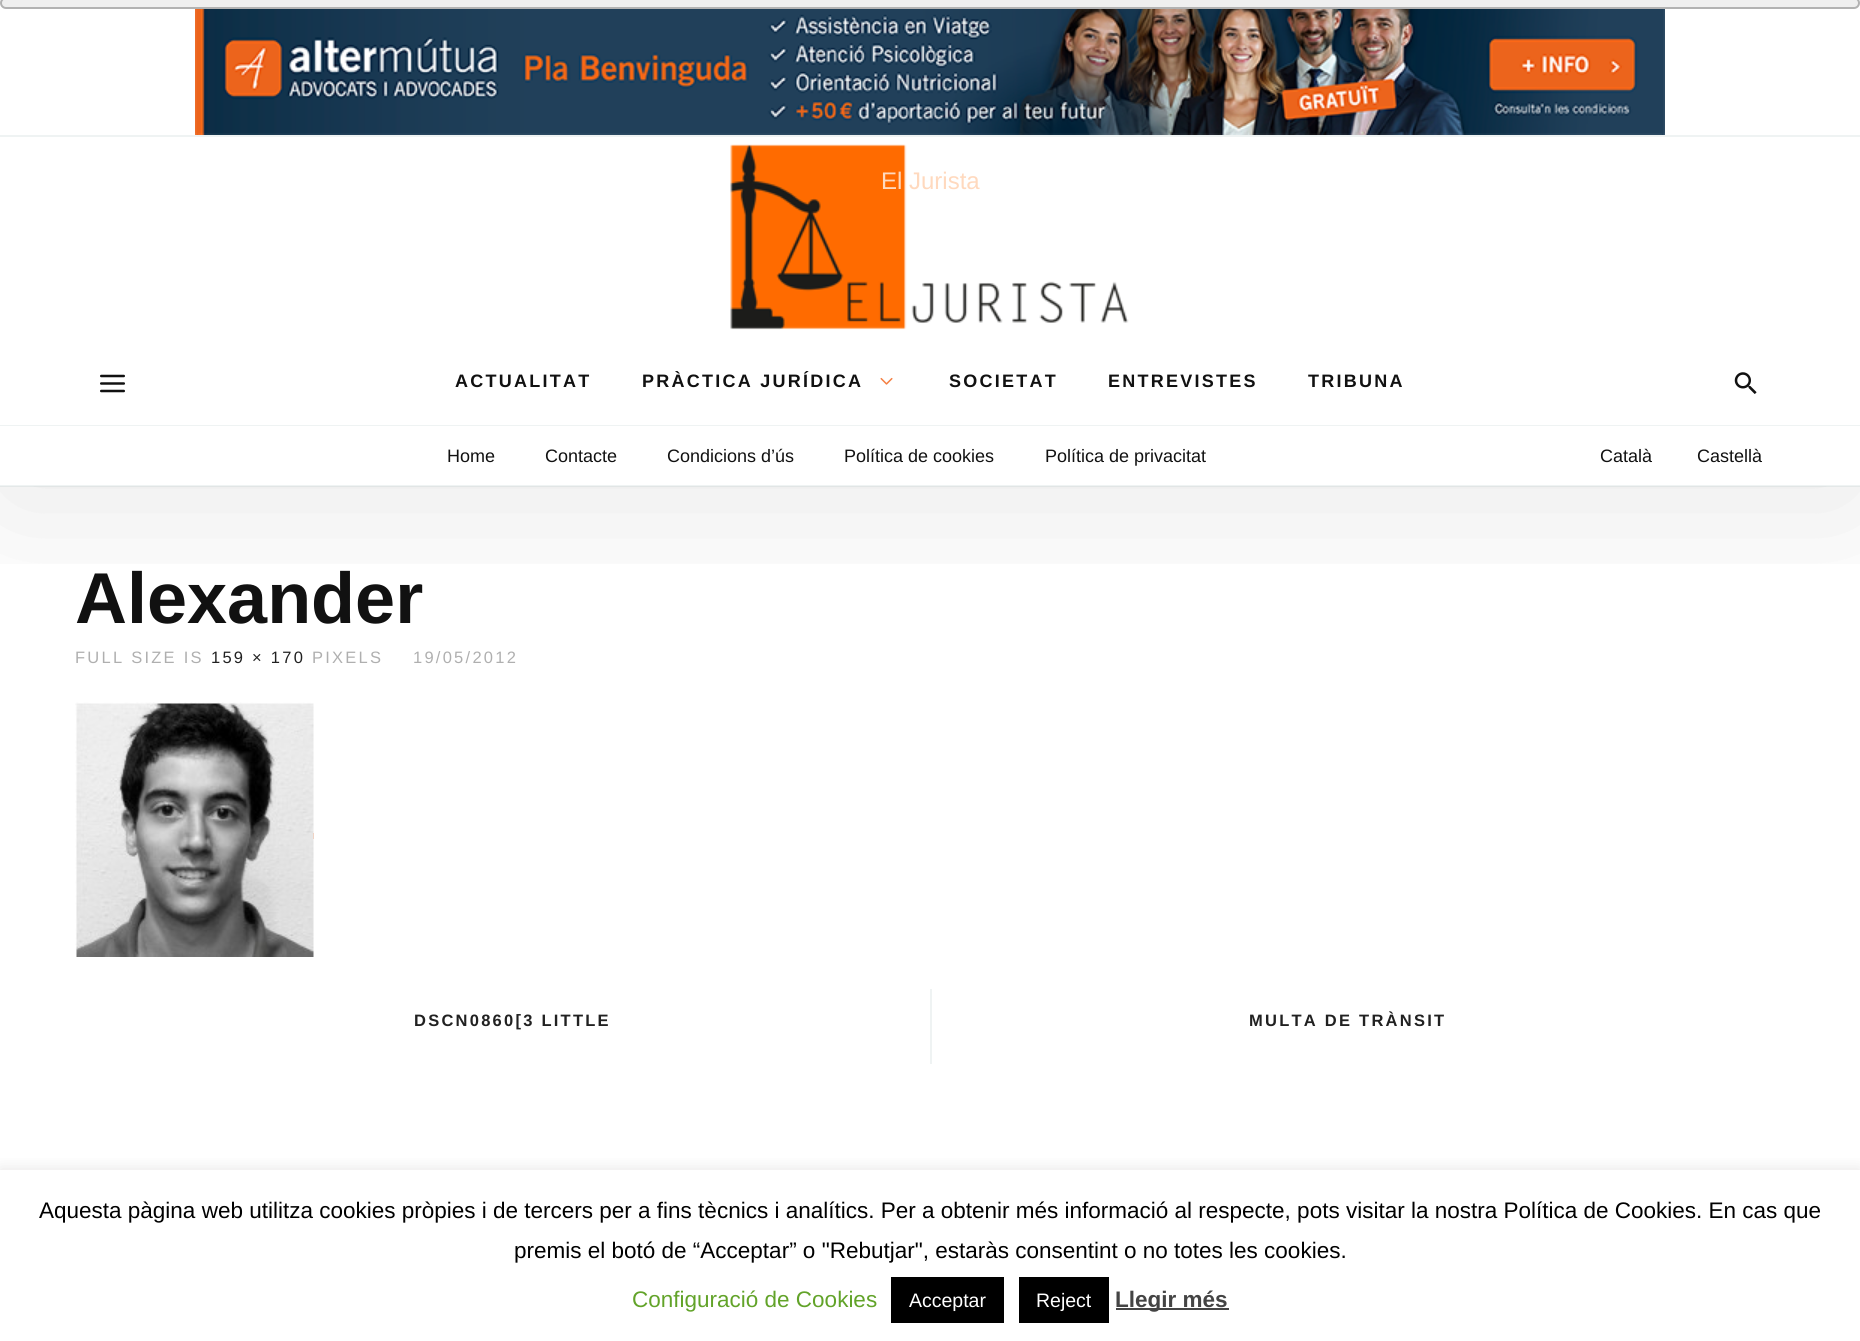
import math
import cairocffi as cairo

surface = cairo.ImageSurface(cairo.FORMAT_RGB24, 1860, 1341)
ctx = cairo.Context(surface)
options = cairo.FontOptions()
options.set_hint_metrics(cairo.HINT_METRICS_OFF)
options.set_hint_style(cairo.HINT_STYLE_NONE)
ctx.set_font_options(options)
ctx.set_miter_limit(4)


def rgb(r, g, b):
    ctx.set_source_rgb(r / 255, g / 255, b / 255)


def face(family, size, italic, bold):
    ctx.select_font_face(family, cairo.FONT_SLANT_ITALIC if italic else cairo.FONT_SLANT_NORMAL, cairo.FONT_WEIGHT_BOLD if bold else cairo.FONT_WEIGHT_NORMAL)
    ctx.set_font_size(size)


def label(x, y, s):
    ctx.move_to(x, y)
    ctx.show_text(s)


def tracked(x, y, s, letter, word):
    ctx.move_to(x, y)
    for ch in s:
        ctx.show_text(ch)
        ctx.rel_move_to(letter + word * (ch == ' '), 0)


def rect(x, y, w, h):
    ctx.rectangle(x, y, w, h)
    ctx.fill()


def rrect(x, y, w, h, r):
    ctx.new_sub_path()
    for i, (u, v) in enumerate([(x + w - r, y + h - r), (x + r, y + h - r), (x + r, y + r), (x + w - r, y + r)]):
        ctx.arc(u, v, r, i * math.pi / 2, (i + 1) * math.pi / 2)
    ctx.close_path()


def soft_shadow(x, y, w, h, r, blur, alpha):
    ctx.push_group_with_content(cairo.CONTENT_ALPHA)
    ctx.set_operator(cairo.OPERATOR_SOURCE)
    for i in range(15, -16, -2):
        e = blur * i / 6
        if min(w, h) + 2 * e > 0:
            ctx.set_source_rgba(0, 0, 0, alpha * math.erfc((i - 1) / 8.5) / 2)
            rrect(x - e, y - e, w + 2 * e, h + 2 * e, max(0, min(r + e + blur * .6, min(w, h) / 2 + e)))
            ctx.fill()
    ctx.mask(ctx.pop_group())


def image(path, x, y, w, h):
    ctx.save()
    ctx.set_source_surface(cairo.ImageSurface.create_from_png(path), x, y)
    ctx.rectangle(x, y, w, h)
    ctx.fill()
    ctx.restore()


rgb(255, 255, 255)
ctx.paint()
rgb(250, 192, 162)
rect(313, 833, 1, 6)
image('image5.png', 75, 702, 239, 255)
ctx.save()
ctx.rectangle(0, 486, 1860, 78)
ctx.clip()
rgb(0, 0, 0)
soft_shadow(0, 15, 1860, 486, 0, 75, 0.1)
ctx.restore()
rgb(239, 239, 239)
rrect(1, -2, 1858, 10, 5)
ctx.fill_preserve()
rgb(178, 178, 178)
ctx.stroke()
rgb(239, 243, 243)
rect(0, 135, 1860, 2)
image('image0.png', 195, 9, 1470, 126)
image('image1.png', 730, 144, 399, 186)
face('Liberation Sans', 24, 0, 0)
rgb(255, 217, 190)
label(881, 189, 'El Jurista')
rgb(239, 243, 243)
rect(0, 425, 1860, 1)
image('image2.png', 100, 374, 25, 19)
face('Liberation Sans', 18, 0, 1)
rgb(17, 17, 17)
tracked(455, 387, 'ACTUALITAT', 2.25, 0)
tracked(642, 387, 'PRÀCTICA JURÍDICA', 2.25, 0)
image('image3.png', 880, 377, 13, 8)
tracked(949, 387, 'SOCIETAT', 2.25, 0)
tracked(1108, 387, 'ENTREVISTES', 2.25, 0)
tracked(1308, 387, 'TRIBUNA', 2.25, 0)
image('image4.png', 1734, 372, 23, 22)
ctx.set_source_rgba(0.373, 0.514, 0.537, 0.1)
rect(0, 485, 1860, 2)
face('Liberation Sans', 18, 0, 0)
rgb(17, 17, 17)
label(447, 462, 'Home')
label(545, 462, 'Contacte')
label(667, 462, 'Condicions d’ús')
label(844, 462, 'Política de cookies')
label(1045, 462, 'Política de privacitat')
label(1600, 462, 'Català')
label(1697, 462, 'Castellà')
face('Liberation Sans', 72, 0, 1)
label(75, 623, 'Alexander')
face('Liberation Sans', 16.5, 0, 0)
rgb(175, 175, 175)
tracked(75, 663, 'FULL SIZE IS', 2.25, 0)
rgb(33, 33, 33)
tracked(211, 663, '159 × 170', 2.25, 0)
rgb(175, 175, 175)
tracked(312, 663, 'PIXELS', 2.25, 0)
tracked(413, 663, '19/05/2012', 2.25, 0)
rgb(239, 243, 243)
rect(930, 989, 2, 75)
face('Liberation Sans', 16.5, 0, 1)
rgb(33, 33, 33)
tracked(414, 1026, 'DSCN0860[3 LITTLE', 2.25, 0)
tracked(1249, 1026, 'MULTA DE TRÀNSIT', 2.25, 0)
ctx.save()
ctx.rectangle(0, 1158, 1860, 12)
ctx.clip()
rgb(172, 171, 171)
soft_shadow(0, 1169, 1860, 171, 0, 7.5, 0.3)
ctx.restore()
face('Liberation Sans', 22.5, 0, 0)
rgb(0, 0, 0)
label(39, 1218, 'Aquesta pàgina web utilitza cookies pròpies i de tercers per a fins tècnics i analítics. Per a obtenir més informació al respecte, pots visitar la nostra Política de Cookies. En cas que')
label(514, 1258, 'premis el botó de “Acceptar” o "Rebutjar", estaràs consentint o no totes les cookies.')
rgb(98, 163, 41)
label(632, 1307, 'Configuració de Cookies')
rgb(0, 0, 0)
rect(891, 1277, 113, 46)
face('Liberation Sans', 19.5, 0, 0)
rgb(255, 255, 255)
label(909, 1307, 'Acceptar')
rgb(0, 0, 0)
rect(1019, 1277, 90, 46)
rgb(255, 255, 255)
label(1036, 1307, 'Reject')
rgb(68, 68, 68)
rect(1116, 1308, 113, 2)
face('Liberation Sans', 22.5, 0, 1)
label(1115, 1307, 'Llegir més')
surface.write_to_png('render.png')
